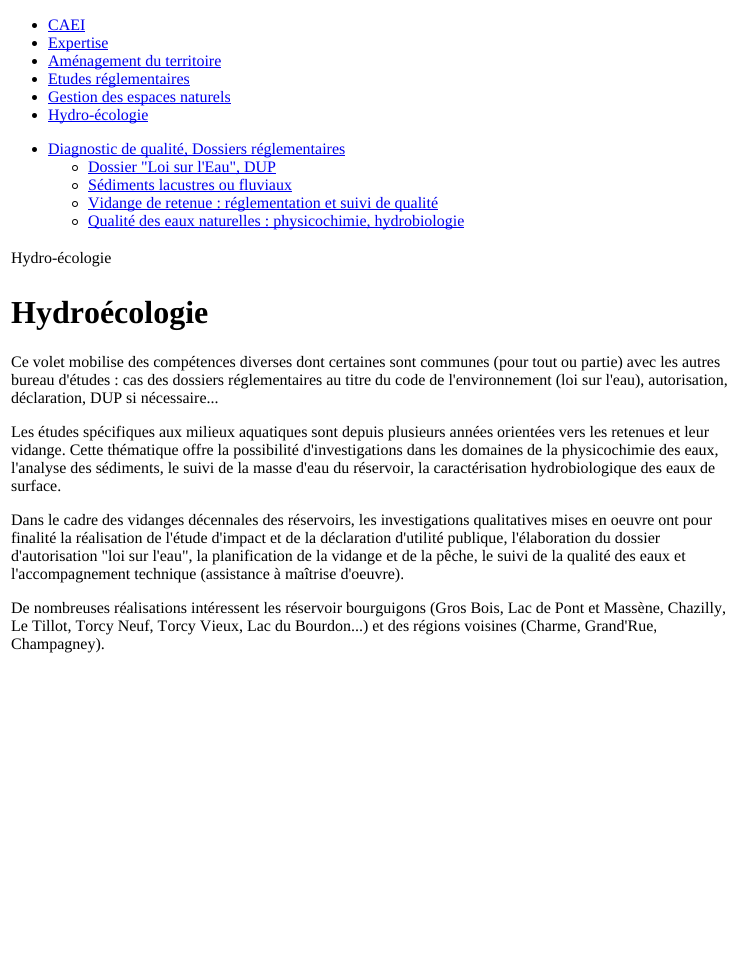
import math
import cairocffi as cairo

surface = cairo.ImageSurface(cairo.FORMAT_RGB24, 745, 961)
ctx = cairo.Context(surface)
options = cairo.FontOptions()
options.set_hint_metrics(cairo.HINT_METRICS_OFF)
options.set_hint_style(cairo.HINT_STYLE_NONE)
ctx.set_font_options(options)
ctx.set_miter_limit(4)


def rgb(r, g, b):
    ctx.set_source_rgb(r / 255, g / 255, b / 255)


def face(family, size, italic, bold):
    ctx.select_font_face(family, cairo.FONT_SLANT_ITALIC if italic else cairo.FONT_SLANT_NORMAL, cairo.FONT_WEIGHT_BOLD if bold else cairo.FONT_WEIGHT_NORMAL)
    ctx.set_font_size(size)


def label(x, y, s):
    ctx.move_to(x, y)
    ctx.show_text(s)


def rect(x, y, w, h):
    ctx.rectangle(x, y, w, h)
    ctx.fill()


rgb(255, 255, 255)
ctx.paint()
rgb(0, 0, 0)
ctx.arc(34.5, 25.5, 2.5, 0, 2 * math.pi)
ctx.fill()
face('Liberation Serif', 16, 0, 0)
rgb(0, 0, 238)
label(48, 30, 'CAEI')
rect(48, 31, 37, 1)
rgb(0, 0, 0)
ctx.new_path()
ctx.arc(34.5, 43.5, 2.5, 0, 2 * math.pi)
ctx.fill()
rgb(0, 0, 238)
rect(48, 49, 60, 1)
label(48, 48, 'Expertise')
rgb(0, 0, 0)
ctx.new_path()
ctx.arc(34.5, 61.5, 2.5, 0, 2 * math.pi)
ctx.fill()
rgb(0, 0, 238)
rect(48, 67, 173, 1)
label(48, 66, 'Aménagement du territoire')
rgb(0, 0, 0)
ctx.new_path()
ctx.arc(34.5, 79.5, 2.5, 0, 2 * math.pi)
ctx.fill()
rgb(0, 0, 238)
rect(48, 85, 142, 1)
label(48, 84, 'Etudes réglementaires')
rgb(0, 0, 0)
ctx.new_path()
ctx.arc(34.5, 97.5, 2.5, 0, 2 * math.pi)
ctx.fill()
rgb(0, 0, 238)
rect(48, 103, 183, 1)
label(48, 102, 'Gestion des espaces naturels')
rgb(0, 0, 0)
ctx.new_path()
ctx.arc(34.5, 115.5, 2.5, 0, 2 * math.pi)
ctx.fill()
rgb(0, 0, 238)
rect(48, 121, 100, 1)
label(48, 120, 'Hydro-écologie')
rgb(0, 0, 0)
ctx.new_path()
ctx.arc(34.5, 149.5, 2.5, 0, 2 * math.pi)
ctx.fill()
rgb(0, 0, 238)
rect(48, 155, 297, 1)
label(48, 154, 'Diagnostic de qualité, Dossiers réglementaires')
ctx.new_path()
ctx.arc(75, 168, 2.5, 0, 2 * math.pi)
rgb(0, 0, 0)
ctx.set_line_width(1)
ctx.stroke()
rgb(0, 0, 238)
rect(88, 173, 188, 1)
label(88, 172, 'Dossier "Loi sur l\'Eau", DUP')
ctx.new_path()
ctx.arc(75, 186, 2.5, 0, 2 * math.pi)
rgb(0, 0, 0)
ctx.stroke()
rgb(0, 0, 238)
label(88, 190, 'Sédiments lacustres ou fluviaux')
rect(88, 191, 204, 1)
ctx.new_path()
ctx.arc(75, 204, 2.5, 0, 2 * math.pi)
rgb(0, 0, 0)
ctx.stroke()
rgb(0, 0, 238)
rect(88, 209, 350, 1)
label(88, 208, 'Vidange de retenue : réglementation et suivi de qualité')
ctx.new_path()
ctx.arc(75, 222, 2.5, 0, 2 * math.pi)
rgb(0, 0, 0)
ctx.stroke()
rgb(0, 0, 238)
rect(88, 227, 376, 1)
label(88, 226, 'Qualité des eaux naturelles : physicochimie, hydrobiologie')
rgb(0, 0, 0)
label(11, 263, 'Hydro-écologie')
face('Liberation Serif', 32, 0, 1)
label(11, 323, 'Hydroécologie')
face('Liberation Serif', 16, 0, 0)
label(11, 367, 'Ce volet mobilise des compétences diverses dont certaines sont communes (pour tout ou partie) avec les autres')
label(11, 385, 'bureau d\'études : cas des dossiers réglementaires au titre du code de l\'environnement (loi sur l\'eau), autorisation,')
label(11, 403, 'déclaration, DUP si nécessaire...')
label(11, 437, 'Les études spécifiques aux milieux aquatiques sont depuis plusieurs années orientées vers les retenues et leur')
label(11, 455, 'vidange. Cette thématique offre la possibilité d\'investigations dans les domaines de la physicochimie des eaux,')
label(11, 473, 'l\'analyse des sédiments, le suivi de la masse d\'eau du réservoir, la caractérisation hydrobiologique des eaux de')
label(11, 491, 'surface.')
label(11, 525, 'Dans le cadre des vidanges décennales des réservoirs, les investigations qualitatives mises en oeuvre ont pour')
label(11, 543, 'finalité la réalisation de l\'étude d\'impact et de la déclaration d\'utilité publique, l\'élaboration du dossier')
label(11, 561, 'd\'autorisation "loi sur l\'eau", la planification de la vidange et de la pêche, le suivi de la qualité des eaux et')
label(11, 579, 'l\'accompagnement technique (assistance à maîtrise d\'oeuvre).')
label(11, 613, 'De nombreuses réalisations intéressent les réservoir bourguigons (Gros Bois, Lac de Pont et Massène, Chazilly,')
label(11, 631, 'Le Tillot, Torcy Neuf, Torcy Vieux, Lac du Bourdon...) et des régions voisines (Charme, Grand\'Rue,')
label(11, 649, 'Champagney).')
surface.write_to_png('render.png')
